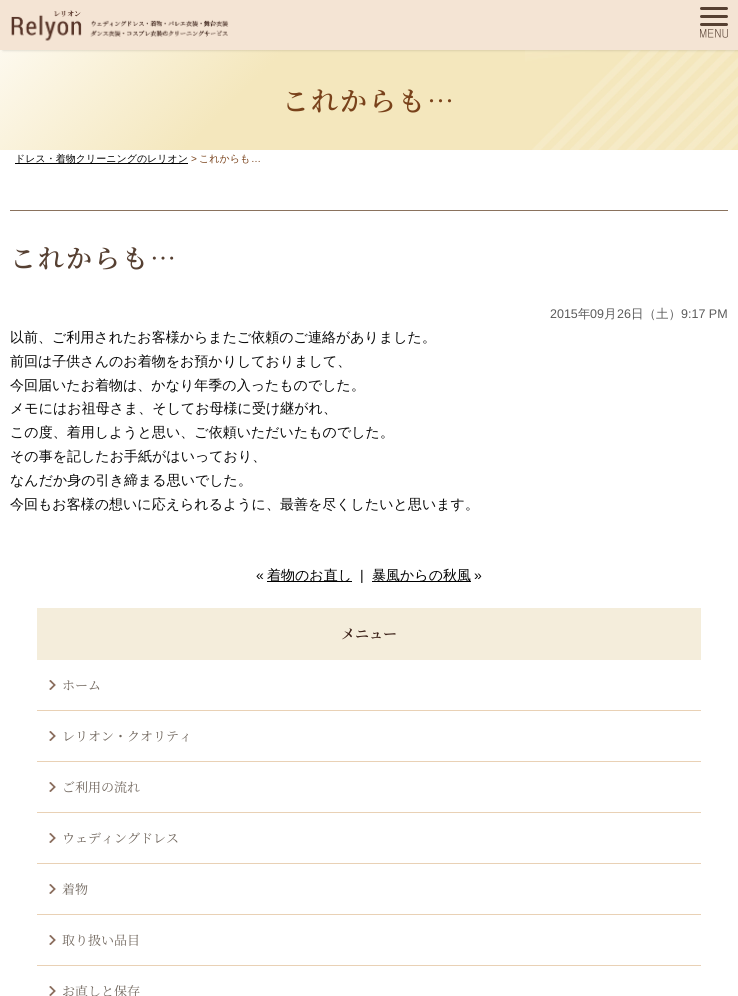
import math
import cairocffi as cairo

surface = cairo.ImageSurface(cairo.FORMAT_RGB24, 738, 996)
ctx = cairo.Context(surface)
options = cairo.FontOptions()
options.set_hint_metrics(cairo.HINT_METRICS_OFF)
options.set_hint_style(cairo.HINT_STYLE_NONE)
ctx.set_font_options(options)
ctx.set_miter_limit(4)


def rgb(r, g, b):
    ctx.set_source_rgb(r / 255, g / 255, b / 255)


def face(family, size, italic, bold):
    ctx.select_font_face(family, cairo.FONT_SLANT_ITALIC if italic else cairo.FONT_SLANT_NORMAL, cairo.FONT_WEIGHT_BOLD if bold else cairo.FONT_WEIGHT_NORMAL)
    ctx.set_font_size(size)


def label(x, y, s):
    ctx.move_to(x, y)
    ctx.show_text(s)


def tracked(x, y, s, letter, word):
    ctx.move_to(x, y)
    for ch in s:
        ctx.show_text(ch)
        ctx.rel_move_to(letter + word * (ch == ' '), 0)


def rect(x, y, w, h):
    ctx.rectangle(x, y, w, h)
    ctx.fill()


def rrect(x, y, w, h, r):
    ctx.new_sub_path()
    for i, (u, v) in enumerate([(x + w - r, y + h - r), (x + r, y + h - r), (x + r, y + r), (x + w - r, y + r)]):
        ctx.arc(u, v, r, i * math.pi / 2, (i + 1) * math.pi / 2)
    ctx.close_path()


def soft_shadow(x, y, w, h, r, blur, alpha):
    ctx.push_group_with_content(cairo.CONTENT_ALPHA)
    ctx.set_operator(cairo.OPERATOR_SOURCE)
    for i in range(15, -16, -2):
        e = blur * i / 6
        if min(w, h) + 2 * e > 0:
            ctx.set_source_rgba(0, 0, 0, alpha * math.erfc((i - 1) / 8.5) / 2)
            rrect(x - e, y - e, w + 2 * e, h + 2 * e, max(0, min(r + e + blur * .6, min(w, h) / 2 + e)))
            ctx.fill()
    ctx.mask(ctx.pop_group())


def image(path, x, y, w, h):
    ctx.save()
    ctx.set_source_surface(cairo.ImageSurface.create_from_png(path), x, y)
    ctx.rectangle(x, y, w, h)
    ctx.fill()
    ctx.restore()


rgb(255, 255, 255)
ctx.paint()
image('image2.png', 0, 50, 738, 100)
rgb(0, 0, 0)
soft_shadow(3, 0, 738, 50, 0, 1.5, 0.2)
rgb(244, 228, 212)
rect(0, 0, 738, 50)
image('image0.png', 11, 10, 218, 31)
rgb(86, 64, 50)
rrect(700, 15, 28, 3, 1.5)
ctx.fill()
rrect(700, 7, 28, 3, 1.5)
ctx.fill()
rrect(700, 23, 28, 3, 1.5)
ctx.fill()
image('image1.png', 700, 29, 28, 9)
face('Noto Serif JP SemiBold', 27, 0, 0)
rgb(121, 66, 27)
tracked(282, 111, 'これからも…', 2, 0)
rgb(0, 0, 0)
rect(15, 163, 173, 1)
face('WenQuanYi Zen Hei Medium', 10, 0, 0)
label(15, 162, 'ドレス・着物クリーニングのレリオン')
face('Liberation Sans', 10, 0, 0)
rgb(121, 66, 27)
label(191, 162, '>')
face('WenQuanYi Zen Hei Medium', 10, 0, 0)
label(199, 162, 'これからも')
face('Liberation Sans', 10, 0, 0)
label(251, 162, '…')
rgb(138, 114, 93)
rect(10, 210, 718, 1)
face('Noto Serif JP SemiBold', 26, 0, 0)
rgb(86, 64, 50)
tracked(10, 268, 'これからも…', 2, 0)
face('Liberation Sans', 12.5, 0, 0)
rgb(90, 90, 90)
label(550, 318, '2015')
face('WenQuanYi Zen Hei Medium', 12.5, 0, 0)
label(578, 318, '年')
face('Liberation Sans', 12.5, 0, 0)
label(590, 318, '09')
face('WenQuanYi Zen Hei Medium', 12.5, 0, 0)
label(604, 318, '月')
face('Liberation Sans', 12.5, 0, 0)
label(617, 318, '26')
face('WenQuanYi Zen Hei Medium', 12.5, 0, 0)
label(631, 318, '日（土）')
face('Liberation Sans', 12.5, 0, 0)
label(681, 318, '9:17 PM')
face('WenQuanYi Zen Hei Medium', 14, 0, 0)
rgb(8, 8, 8)
label(10, 342, '以前、ご利用されたお客様からまたご依頼のご連絡がありました。')
label(10, 366, '前回は子供さんのお着物をお預かりしておりまして、')
label(10, 390, '今回届いたお着物は、かなり年季の入ったものでした。')
label(10, 413, 'メモにはお祖母さま、そしてお母様に受け継がれ、')
label(10, 437, 'この度、着用しようと思い、ご依頼いただいたものでした。')
label(10, 461, 'その事を記したお手紙がはいっており、')
label(10, 485, 'なんだか身の引き締まる思いでした。')
label(10, 509, '今回もお客様の想いに応えられるように、最善を尽くしたいと思います。')
face('Liberation Sans', 14, 0, 0)
label(256, 580, '«')
rgb(0, 0, 0)
rect(267, 581, 85, 1)
face('WenQuanYi Zen Hei Medium', 14, 0, 0)
label(267, 580, '着物のお直し')
face('Liberation Sans', 14, 0, 0)
rgb(8, 8, 8)
label(360, 580, '|')
rgb(0, 0, 0)
rect(372, 581, 99, 1)
face('WenQuanYi Zen Hei Medium', 14, 0, 0)
label(372, 580, '暴風からの秋風')
face('Liberation Sans', 14, 0, 0)
rgb(8, 8, 8)
label(474, 580, '»')
rgb(244, 237, 219)
rect(37, 608, 664, 52)
face('Noto Serif JP SemiBold', 14, 0, 0)
rgb(61, 35, 26)
label(341, 639, 'メニュー')
image('image3.png', 49, 680, 7, 10)
rgb(233, 209, 181)
rect(37, 710, 664, 1)
face('Noto Serif JP', 13, 0, 0)
rgb(113, 103, 94)
label(62, 690, 'ホーム')
image('image3.png', 49, 731, 7, 10)
rgb(233, 209, 181)
rect(37, 761, 664, 1)
rgb(113, 103, 94)
label(62, 741, 'レリオン・クオリティ')
image('image3.png', 49, 782, 7, 10)
rgb(233, 209, 181)
rect(37, 812, 664, 1)
rgb(113, 103, 94)
label(62, 792, 'ご利用の流れ')
image('image3.png', 49, 833, 7, 10)
rgb(233, 209, 181)
rect(37, 863, 664, 1)
rgb(113, 103, 94)
label(62, 843, 'ウェディングドレス')
image('image3.png', 49, 884, 7, 10)
rgb(233, 209, 181)
rect(37, 914, 664, 1)
rgb(113, 103, 94)
label(62, 894, '着物')
image('image3.png', 49, 935, 7, 10)
rgb(233, 209, 181)
rect(37, 965, 664, 1)
rgb(113, 103, 94)
label(62, 945, '取り扱い品目')
image('image3.png', 49, 986, 7, 10)
label(62, 996, 'お直しと保存')
surface.write_to_png('render.png')
